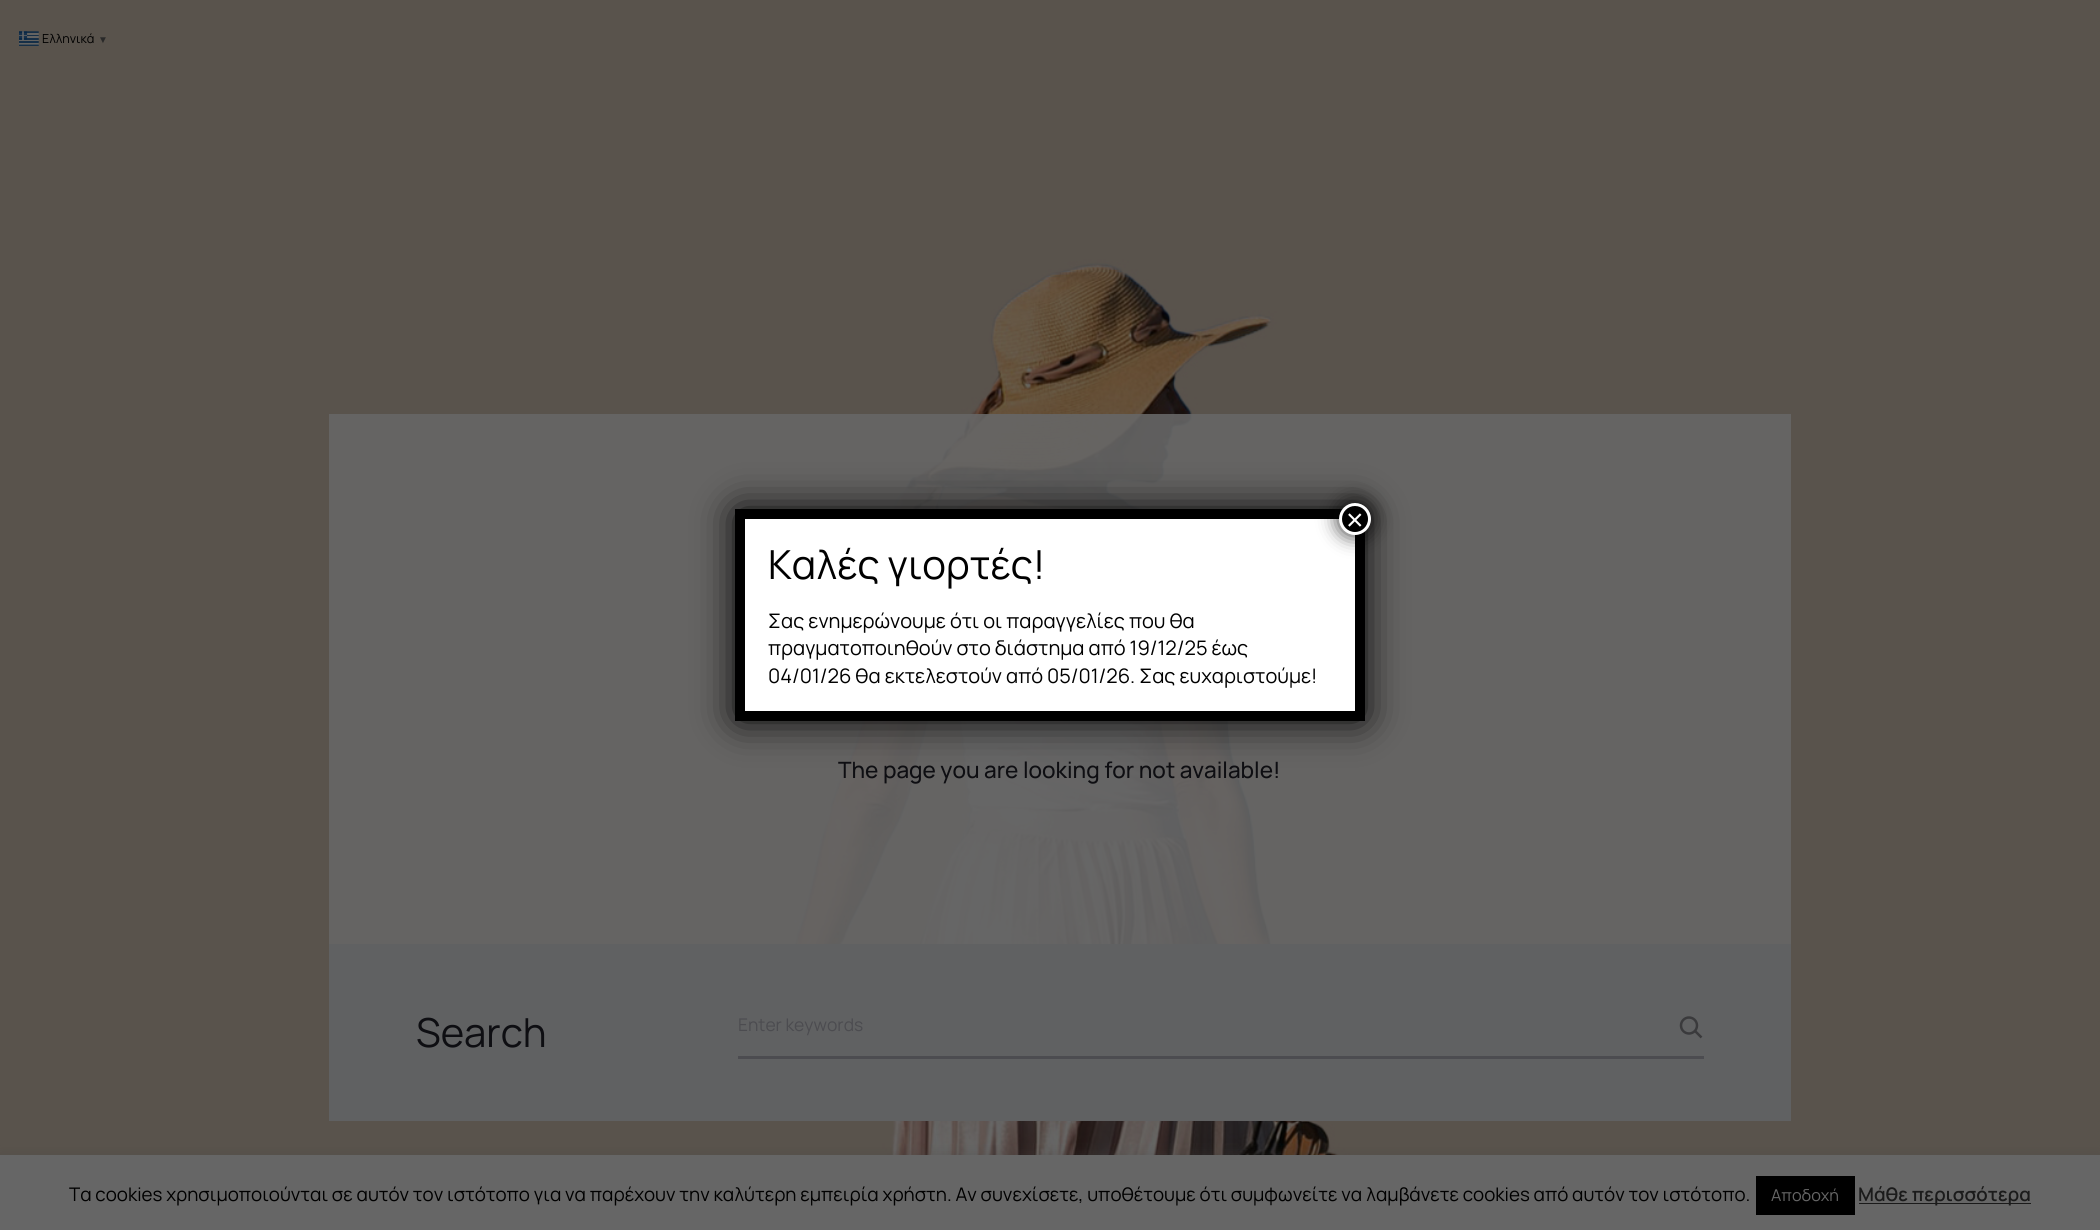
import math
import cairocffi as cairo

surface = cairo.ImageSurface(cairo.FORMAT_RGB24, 2100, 1230)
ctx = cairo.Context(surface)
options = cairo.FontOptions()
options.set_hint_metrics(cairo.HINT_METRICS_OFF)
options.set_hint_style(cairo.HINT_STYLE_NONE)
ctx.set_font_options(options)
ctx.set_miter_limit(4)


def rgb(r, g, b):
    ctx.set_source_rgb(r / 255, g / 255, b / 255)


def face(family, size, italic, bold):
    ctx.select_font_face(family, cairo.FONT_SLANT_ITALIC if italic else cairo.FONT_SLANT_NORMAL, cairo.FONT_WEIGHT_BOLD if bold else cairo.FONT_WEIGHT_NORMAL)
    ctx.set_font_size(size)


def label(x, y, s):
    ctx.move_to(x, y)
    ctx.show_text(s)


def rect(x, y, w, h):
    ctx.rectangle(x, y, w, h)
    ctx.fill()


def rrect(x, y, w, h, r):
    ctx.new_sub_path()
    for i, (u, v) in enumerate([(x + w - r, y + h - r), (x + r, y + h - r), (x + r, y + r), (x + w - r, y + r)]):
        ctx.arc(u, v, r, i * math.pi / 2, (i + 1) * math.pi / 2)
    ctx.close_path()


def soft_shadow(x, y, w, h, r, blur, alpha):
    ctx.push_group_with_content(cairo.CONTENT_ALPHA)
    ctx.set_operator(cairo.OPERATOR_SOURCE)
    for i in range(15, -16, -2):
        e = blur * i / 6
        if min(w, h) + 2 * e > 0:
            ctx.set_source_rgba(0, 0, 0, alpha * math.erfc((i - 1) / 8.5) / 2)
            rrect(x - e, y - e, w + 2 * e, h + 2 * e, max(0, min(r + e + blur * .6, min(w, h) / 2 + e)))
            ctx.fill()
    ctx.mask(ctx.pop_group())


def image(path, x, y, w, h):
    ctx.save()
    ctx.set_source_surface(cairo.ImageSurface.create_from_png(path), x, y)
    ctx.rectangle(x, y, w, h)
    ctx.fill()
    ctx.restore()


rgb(255, 255, 255)
ctx.paint()
image('image0.png', 0, 0, 2100, 1155)
image('image1.png', 19, 31, 20, 15)
face('Manrope', 12.5, 0, 0)
rgb(0, 0, 0)
label(42, 43, 'Ελληνικά')
face('Liberation Serif', 10, 0, 1)
rgb(41, 41, 41)
label(98, 43, '▼')
ctx.set_source_rgba(0.4, 0.4, 0.4, 0.9)
rect(329, 414, 1462, 530)
rgb(2, 2, 2)
soft_shadow(735, 509, 630, 212, 4, 19, 1)
rgb(255, 255, 255)
rect(745, 519, 610, 192)
ctx.new_path()
ctx.move_to(740, 514)
ctx.line_to(1360, 514)
ctx.line_to(1360, 716)
ctx.line_to(740, 716)
ctx.close_path()
rgb(0, 0, 0)
ctx.set_line_width(10)
ctx.stroke()
rgb(2, 2, 2)
soft_shadow(1338, 501, 35, 35, 17.5, 9.5, 0.75)
rgb(0, 0, 0)
ctx.arc(1355, 519, 14.5, 0, 2 * math.pi)
ctx.fill_preserve()
rgb(255, 255, 255)
ctx.set_line_width(3)
ctx.stroke()
face('Liberation Sans', 30, 0, 0)
label(1346, 530, '×')
face('Manrope', 40, 0, 0)
rgb(0, 0, 0)
label(768, 579, 'Καλές γιορτές!')
face('Manrope', 20, 0, 0)
label(768, 628, 'Σας ενημερώνουμε ότι οι παραγγελίες που θα')
label(768, 655, 'πραγματοποιηθούν στο διάστημα από 19/12/25 έως')
label(768, 683, '04/01/26 θα εκτελεστούν από 05/01/26. Σας ευχαριστούμε!')
face('Manrope Medium', 22.5, 0, 0)
rgb(14, 14, 18)
label(838, 778, 'The page you are looking for not available!')
rgb(96, 97, 98)
rect(329, 944, 1462, 177)
face('Manrope', 40, 0, 0)
rgb(14, 14, 18)
label(416, 1047, 'Search')
rgb(76, 76, 80)
rect(738, 1056, 966, 3)
face('Manrope', 17.5, 0, 0)
label(738, 1031, 'Enter keywords')
ctx.new_path()
ctx.arc(1689, 1025.5, 8, 0, 2 * math.pi)
rgb(58, 58, 60)
ctx.set_line_width(2.5)
ctx.stroke()
ctx.new_path()
ctx.move_to(1695, 1031)
ctx.line_to(1701.5, 1037.5)
ctx.stroke()
rgb(69, 68, 68)
soft_shadow(0, 1154, 2100, 75, 0, 6, 0.3)
rgb(102, 102, 102)
rect(0, 1155, 2100, 75)
face('Manrope', 18.75, 0, 0)
rgb(0, 0, 0)
label(69, 1201, 'Τα cookies χρησιμοποιούνται σε αυτόν τον ιστότοπο για να παρέχουν την καλύτερη εμπειρία χρήστη. Αν συνεχίσετε, υποθέτουμε ότι συμφωνείτε να λαμβάνετε cookies από αυτόν τον ιστότοπο.')
rect(1756, 1176, 99, 39)
face('Manrope', 16.25, 0, 0)
rgb(102, 102, 102)
label(1771, 1201, 'Αποδοχή')
rgb(27, 27, 27)
rect(1859, 1203, 172, 1)
face('Manrope SemiBold', 18.75, 0, 0)
label(1858, 1201, 'Μάθε περισσότερα')
surface.write_to_png('render.png')
